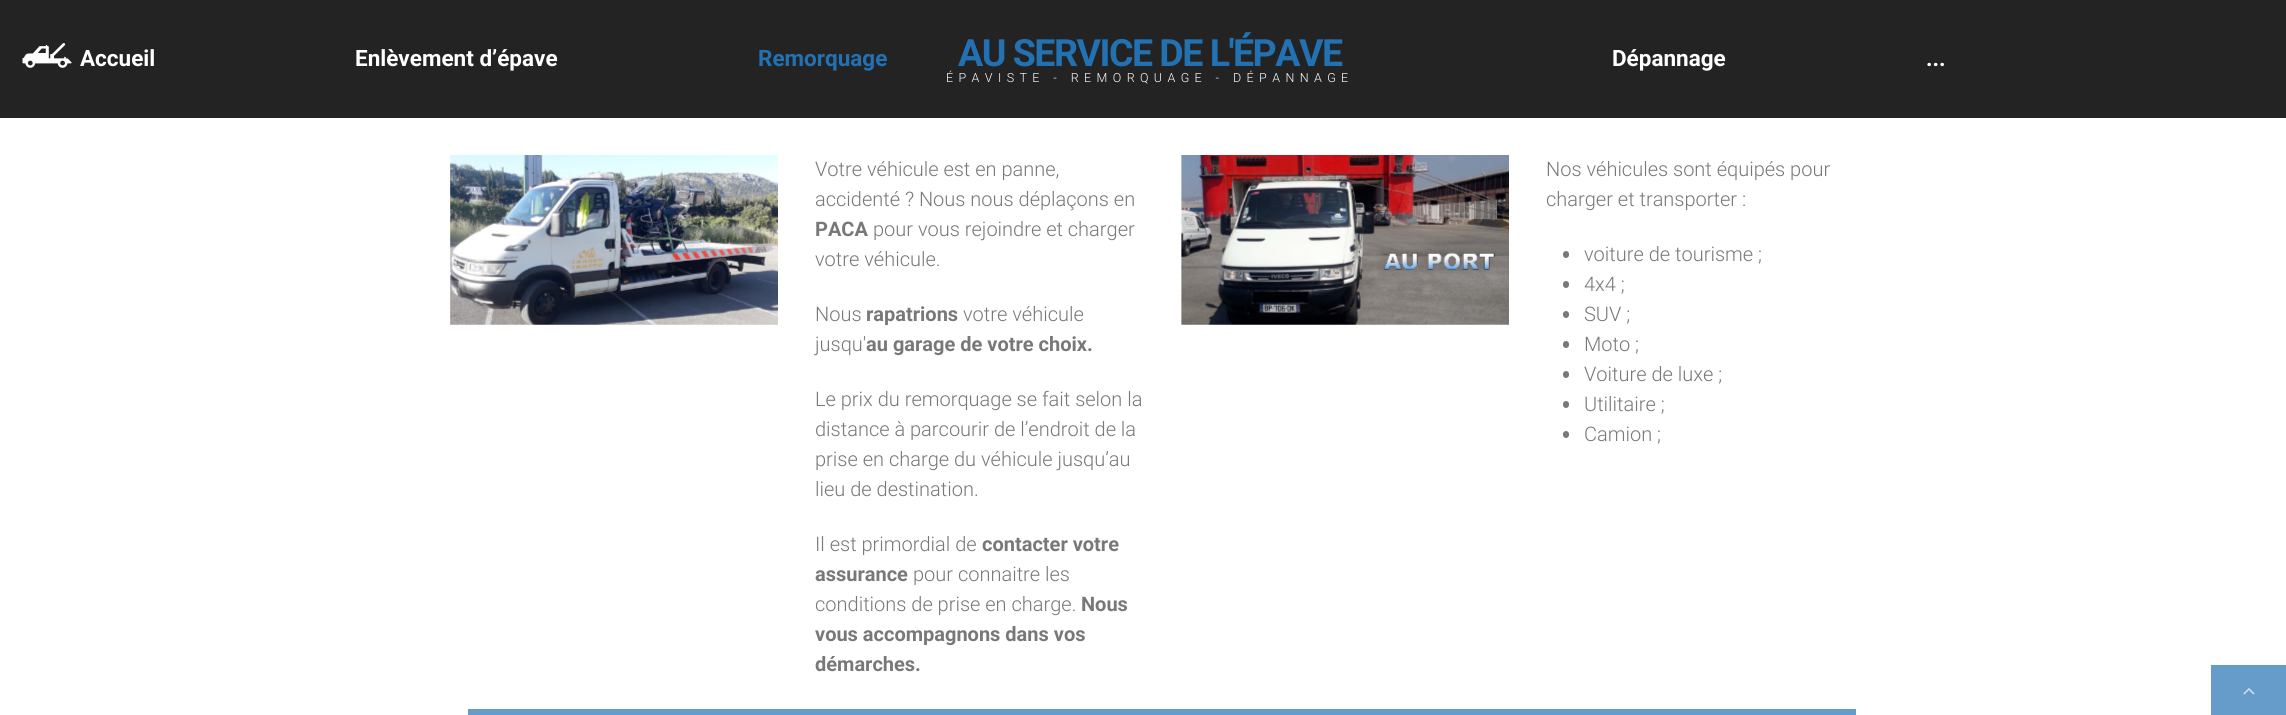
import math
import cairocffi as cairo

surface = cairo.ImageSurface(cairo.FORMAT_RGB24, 2286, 715)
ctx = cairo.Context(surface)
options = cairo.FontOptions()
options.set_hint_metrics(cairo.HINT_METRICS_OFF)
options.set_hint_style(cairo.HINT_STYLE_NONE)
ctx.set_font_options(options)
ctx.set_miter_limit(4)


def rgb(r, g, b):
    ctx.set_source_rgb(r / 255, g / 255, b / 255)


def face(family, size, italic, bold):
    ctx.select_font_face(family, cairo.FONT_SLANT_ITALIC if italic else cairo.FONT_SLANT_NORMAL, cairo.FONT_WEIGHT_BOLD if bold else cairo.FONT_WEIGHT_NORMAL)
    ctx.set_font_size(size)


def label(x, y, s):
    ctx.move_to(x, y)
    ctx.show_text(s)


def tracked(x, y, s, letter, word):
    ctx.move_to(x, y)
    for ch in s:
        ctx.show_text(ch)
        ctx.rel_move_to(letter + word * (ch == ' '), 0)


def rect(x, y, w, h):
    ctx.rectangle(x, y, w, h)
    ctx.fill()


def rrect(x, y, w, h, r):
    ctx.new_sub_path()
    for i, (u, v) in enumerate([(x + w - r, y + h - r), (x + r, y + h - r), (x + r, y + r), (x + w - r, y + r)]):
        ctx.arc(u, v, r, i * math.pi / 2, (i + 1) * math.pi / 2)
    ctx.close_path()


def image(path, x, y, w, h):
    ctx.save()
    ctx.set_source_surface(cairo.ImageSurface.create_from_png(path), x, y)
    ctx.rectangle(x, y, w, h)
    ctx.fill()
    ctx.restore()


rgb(255, 255, 255)
ctx.paint()
rgb(35, 35, 35)
rect(0, 0, 2286, 118)
face('Roboto', 37.5, 0, 1)
rgb(34, 113, 179)
tracked(958, 66, 'AU SERVICE DE L\'ÉPAVE', -1.5, 0)
face('Roboto Light', 12.5, 0, 0)
rgb(255, 255, 255)
tracked(946, 82, 'ÉPAVISTE - REMORQUAGE - DÉPANNAGE', 5.4, 0)
image('image0.png', 22, 43, 50, 25)
face('Roboto', 22.5, 0, 1)
label(80, 66, 'Accueil')
label(355, 66, 'Enlèvement d’épave')
rgb(34, 113, 179)
label(758, 66, 'Remorquage')
rgb(255, 255, 255)
label(1612, 66, 'Dépannage')
label(1926, 66, '...')
image('image1.png', 450, 155, 328, 170)
face('Roboto Light', 20, 0, 0)
rgb(120, 120, 120)
label(815, 176, 'Votre véhicule est en panne,')
label(815, 206, 'accidenté ? Nous nous déplaçons en')
face('Roboto', 20, 0, 1)
label(815, 236, 'PACA')
face('Roboto Light', 20, 0, 0)
label(873, 236, 'pour vous rejoindre et charger')
label(815, 266, 'votre véhicule.')
label(815, 321, 'Nous')
face('Roboto', 20, 0, 1)
label(866, 321, 'rapatrions')
face('Roboto Light', 20, 0, 0)
label(963, 321, 'votre véhicule')
label(815, 351, 'jusqu\'')
face('Roboto', 20, 0, 1)
label(866, 351, 'au garage de votre choix.')
face('Roboto Light', 20, 0, 0)
label(815, 406, 'Le prix du remorquage se fait selon la')
label(815, 436, 'distance à parcourir de l’endroit de la')
label(815, 466, 'prise en charge du véhicule jusqu’au')
label(815, 496, 'lieu de destination.')
label(815, 551, 'Il est primordial de')
face('Roboto', 20, 0, 1)
label(982, 551, 'contacter votre')
label(815, 581, 'assurance')
face('Roboto Light', 20, 0, 0)
label(913, 581, 'pour connaitre les')
label(815, 611, 'conditions de prise en charge.')
face('Roboto', 20, 0, 1)
label(1081, 611, 'Nous')
label(815, 641, 'vous accompagnons dans vos')
label(815, 671, 'démarches.')
image('image2.png', 1181, 155, 328, 170)
face('Roboto Light', 20, 0, 0)
label(1546, 176, 'Nos véhicules sont équipés pour')
label(1546, 206, 'charger et transporter :')
rrect(1563, 251, 6, 7, 3)
ctx.fill()
label(1584, 261, 'voiture de tourisme ;')
rrect(1563, 281, 6, 7, 3)
ctx.fill()
label(1584, 291, '4x4 ;')
rrect(1563, 311, 6, 7, 3)
ctx.fill()
label(1584, 321, 'SUV ;')
rrect(1563, 341, 6, 7, 3)
ctx.fill()
label(1584, 351, 'Moto ;')
rrect(1563, 371, 6, 7, 3)
ctx.fill()
label(1584, 381, 'Voiture de luxe ;')
rrect(1563, 401, 6, 7, 3)
ctx.fill()
label(1584, 411, 'Utilitaire ;')
rrect(1563, 431, 6, 7, 3)
ctx.fill()
label(1584, 441, 'Camion ;')
rgb(100, 156, 202)
rect(468, 709, 1388, 6)
rgb(101, 156, 202)
rect(2211, 665, 75, 50)
image('image3.png', 2243, 688, 12, 7)
surface.write_to_png('render.png')
